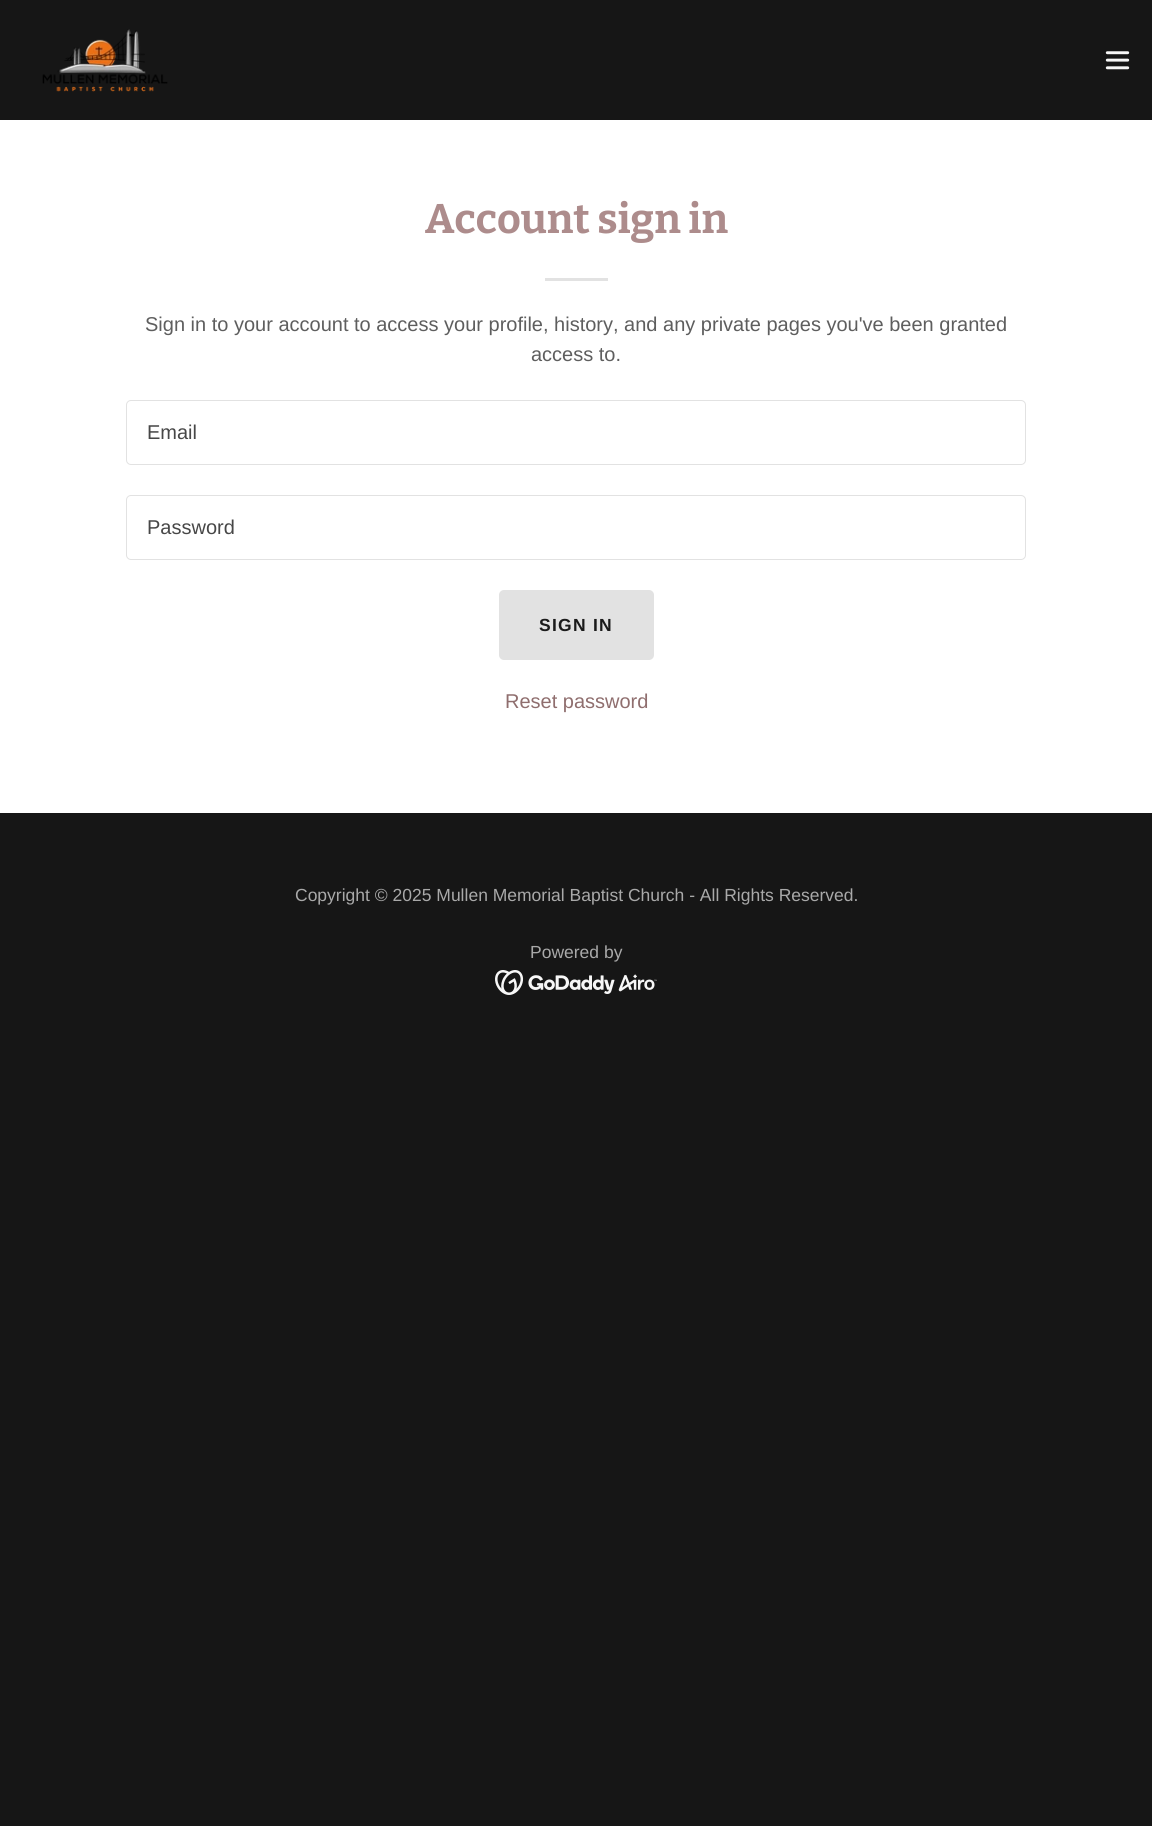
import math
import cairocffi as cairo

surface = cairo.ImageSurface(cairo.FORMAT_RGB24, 1152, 1826)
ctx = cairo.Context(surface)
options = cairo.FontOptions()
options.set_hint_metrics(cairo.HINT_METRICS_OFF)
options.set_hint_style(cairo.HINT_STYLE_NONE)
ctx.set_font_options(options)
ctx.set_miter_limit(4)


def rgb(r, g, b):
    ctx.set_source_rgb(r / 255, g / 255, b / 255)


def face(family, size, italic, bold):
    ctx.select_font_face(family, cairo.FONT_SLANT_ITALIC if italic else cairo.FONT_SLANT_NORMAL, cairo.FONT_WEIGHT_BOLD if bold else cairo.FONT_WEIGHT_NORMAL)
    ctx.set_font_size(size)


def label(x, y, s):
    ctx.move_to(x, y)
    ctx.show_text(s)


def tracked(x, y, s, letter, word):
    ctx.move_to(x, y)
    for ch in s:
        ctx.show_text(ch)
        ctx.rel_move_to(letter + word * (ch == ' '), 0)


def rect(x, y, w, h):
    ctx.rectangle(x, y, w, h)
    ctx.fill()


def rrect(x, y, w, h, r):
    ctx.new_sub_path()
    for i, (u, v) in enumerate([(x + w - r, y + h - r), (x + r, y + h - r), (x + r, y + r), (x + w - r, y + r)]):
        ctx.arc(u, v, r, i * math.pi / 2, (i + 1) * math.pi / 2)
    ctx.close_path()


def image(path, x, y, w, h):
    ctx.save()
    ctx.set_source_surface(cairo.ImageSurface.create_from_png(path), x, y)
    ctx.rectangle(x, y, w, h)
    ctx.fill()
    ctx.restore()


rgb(22, 22, 22)
ctx.paint()
image('image0.png', 42, 29, 126, 63)
image('image1.png', 1105, 51, 25, 19)
rgb(255, 255, 255)
rect(0, 120, 1152, 693)
face('Bitter Thin', 41.25, 0, 0)
rgb(173, 140, 140)
label(425, 233, 'Account sign in')
rgb(226, 226, 226)
rect(545, 278, 63, 3)
face('Liberation Sans', 20, 0, 0)
rgb(94, 94, 94)
label(145, 331, 'Sign in to your account to access your profile, history, and any private pages you\'ve been granted')
label(531, 361, 'access to.')
rrect(126.5, 400.5, 899, 64, 4.5)
rgb(226, 226, 226)
ctx.set_line_width(1)
ctx.stroke()
rgb(71, 71, 71)
label(147, 439, 'Email')
rrect(126.5, 495.5, 899, 64, 4.5)
rgb(226, 226, 226)
ctx.stroke()
rgb(71, 71, 71)
label(147, 534, 'Password')
rgb(226, 226, 226)
rrect(499, 590, 155, 70, 5)
ctx.fill()
face('Liberation Sans', 17.5, 0, 1)
rgb(27, 27, 27)
tracked(539, 631, 'SIGN IN', 1.25, 0)
face('Liberation Sans', 20, 0, 0)
rgb(143, 110, 110)
label(505, 708, 'Reset password')
face('Liberation Sans', 17.5, 0, 0)
rgb(169, 169, 169)
label(295, 901, 'Copyright © 2025 Mullen Memorial Baptist Church - All Rights Reserved.')
label(530, 958, 'Powered by')
image('image2.png', 495, 970, 162, 25)
surface.write_to_png('render.png')
